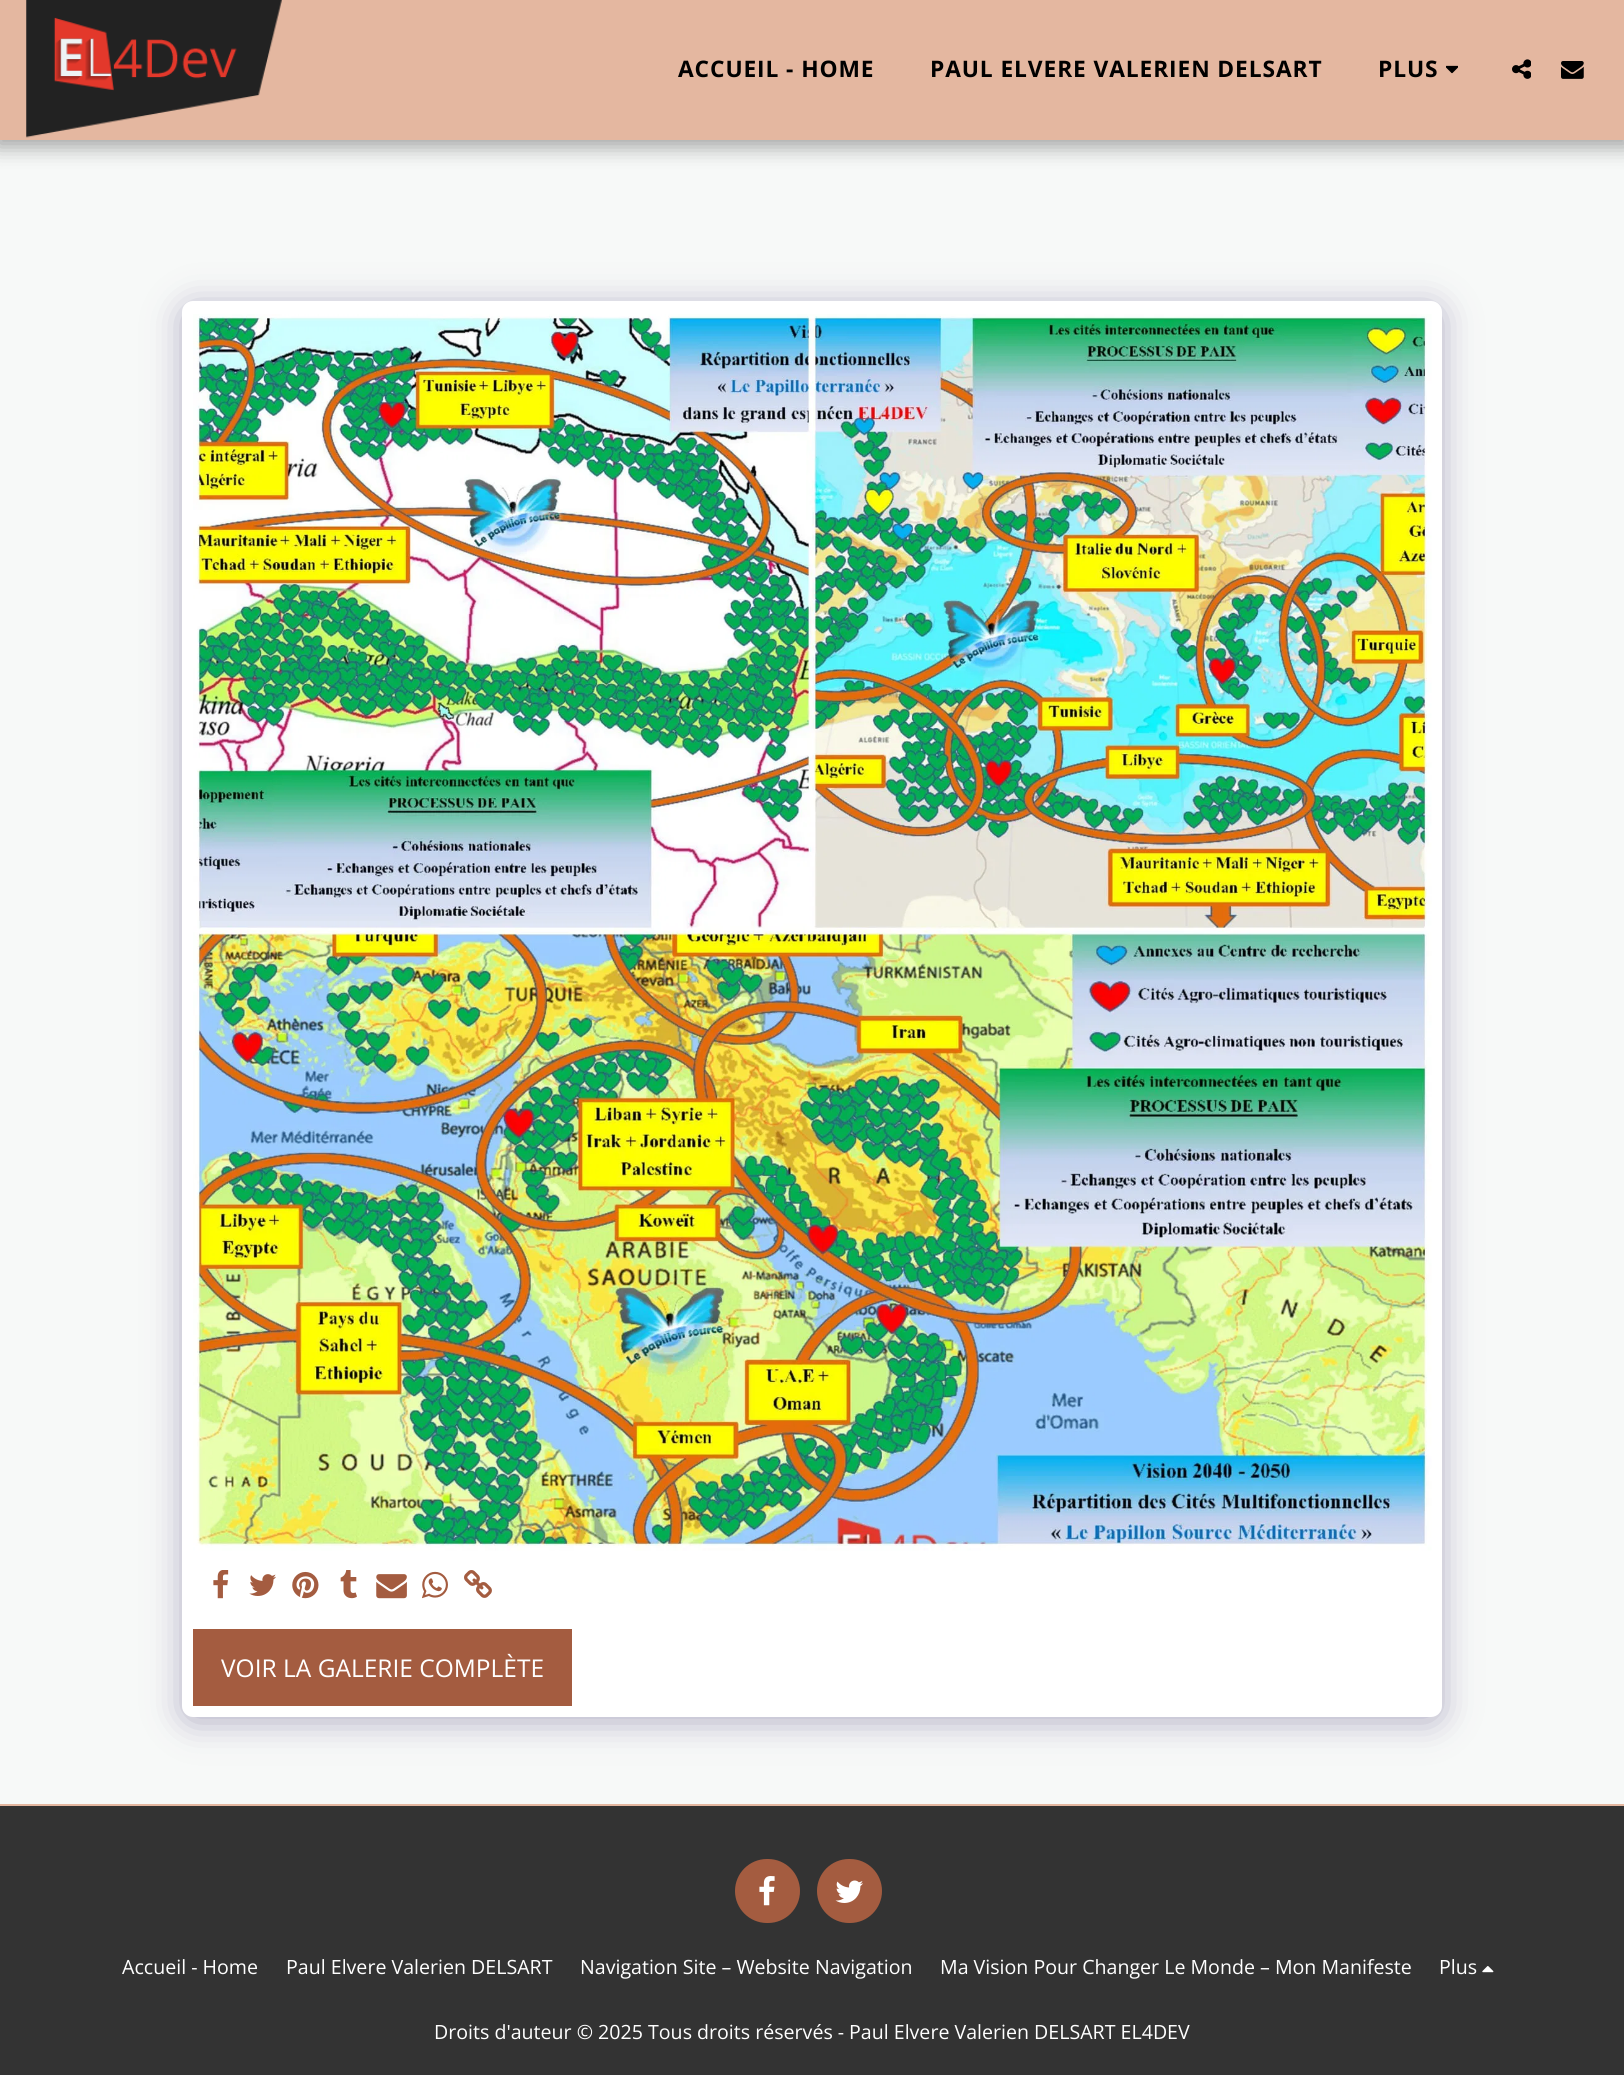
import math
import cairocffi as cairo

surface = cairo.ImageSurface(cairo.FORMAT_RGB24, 1624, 2075)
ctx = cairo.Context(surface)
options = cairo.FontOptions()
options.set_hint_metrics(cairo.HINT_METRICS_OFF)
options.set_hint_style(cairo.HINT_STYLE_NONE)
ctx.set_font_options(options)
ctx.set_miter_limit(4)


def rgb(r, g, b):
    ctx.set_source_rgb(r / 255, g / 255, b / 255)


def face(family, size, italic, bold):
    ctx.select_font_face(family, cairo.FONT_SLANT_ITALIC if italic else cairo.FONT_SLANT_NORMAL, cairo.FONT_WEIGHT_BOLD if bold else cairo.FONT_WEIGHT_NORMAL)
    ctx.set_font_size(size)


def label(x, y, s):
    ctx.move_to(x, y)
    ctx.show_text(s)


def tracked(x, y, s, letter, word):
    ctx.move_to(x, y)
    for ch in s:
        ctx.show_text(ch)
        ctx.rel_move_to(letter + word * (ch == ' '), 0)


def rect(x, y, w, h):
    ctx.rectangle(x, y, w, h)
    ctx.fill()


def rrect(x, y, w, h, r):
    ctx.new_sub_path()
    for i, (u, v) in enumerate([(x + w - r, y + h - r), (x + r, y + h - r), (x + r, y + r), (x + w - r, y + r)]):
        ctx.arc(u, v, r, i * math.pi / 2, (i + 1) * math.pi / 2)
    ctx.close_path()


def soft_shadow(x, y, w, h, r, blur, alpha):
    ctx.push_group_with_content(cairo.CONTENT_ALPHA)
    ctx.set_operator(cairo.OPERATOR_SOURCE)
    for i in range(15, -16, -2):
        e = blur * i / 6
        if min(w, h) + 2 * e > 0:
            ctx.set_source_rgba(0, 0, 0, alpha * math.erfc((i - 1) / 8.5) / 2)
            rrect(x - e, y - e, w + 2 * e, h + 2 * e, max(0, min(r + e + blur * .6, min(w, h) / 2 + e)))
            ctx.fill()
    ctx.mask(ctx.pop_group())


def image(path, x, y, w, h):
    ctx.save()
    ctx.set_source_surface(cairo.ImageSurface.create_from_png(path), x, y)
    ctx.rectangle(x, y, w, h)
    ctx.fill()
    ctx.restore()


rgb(247, 249, 248)
ctx.paint()
rgb(0, 0, 0)
soft_shadow(-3, 0, 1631, 147, 0, 10.5, 0.35)
rgb(228, 183, 160)
rect(0, 0, 1624, 140)
image('image0.png', 26, 0, 256, 138)
face('Open Sans', 22.75, 0, 1)
rgb(0, 0, 0)
tracked(678, 77, 'ACCUEIL - HOME', 0.9, 0)
tracked(930, 77, 'PAUL ELVERE VALERIEN DELSART', 0.9, 0)
tracked(1378, 77, 'PLUS', 0.9, 0)
image('image1.png', 1446, 65, 12, 9)
image('image2.png', 1512, 59, 19, 20)
image('image3.png', 1561, 61, 23, 18)
rgb(77, 63, 122)
soft_shadow(182, 306, 1260, 1416, 11, 17.5, 0.4)
rgb(255, 255, 255)
rrect(182, 301, 1260, 1416, 11)
ctx.fill()
image('image4.png', 193, 314, 1239, 1237)
image('image5.png', 213, 1570, 16, 29)
image('image6.png', 249, 1574, 27, 22)
image('image7.png', 292, 1571, 27, 28)
image('image8.png', 340, 1570, 17, 29)
image('image9.png', 376, 1574, 31, 25)
image('image10.png', 422, 1571, 26, 28)
image('image11.png', 464, 1570, 28, 28)
rgb(164, 92, 64)
rect(193, 1629, 379, 77)
face('Open Sans', 24.5, 0, 0)
rgb(255, 255, 255)
label(221, 1677, 'VOIR LA GALERIE COMPLÈTE')
rgb(228, 183, 160)
rect(0, 1804, 1624, 2)
rgb(51, 51, 51)
rect(0, 1806, 1624, 269)
rgb(164, 92, 64)
rrect(736, 1860, 63, 62, 31)
ctx.fill_preserve()
ctx.stroke()
image('image12.png', 759, 1876, 16, 30)
rrect(818, 1860, 63, 62, 31)
ctx.fill_preserve()
ctx.stroke()
image('image13.png', 835, 1880, 28, 23)
face('Open Sans', 19.6, 0, 0)
rgb(255, 255, 255)
label(122, 1974, 'Accueil - Home')
label(286, 1974, 'Paul Elvere Valerien DELSART')
label(580, 1974, 'Navigation Site – Website Navigation')
label(940, 1974, 'Ma Vision Pour Changer Le Monde – Mon Manifeste')
label(1439, 1974, 'Plus')
image('image14.png', 1482, 1966, 12, 7)
label(434, 2039, 'Droits d\'auteur © 2025 Tous droits réservés -')
label(849, 2039, 'Paul Elvere Valerien DELSART EL4DEV')
surface.write_to_png('render.png')
